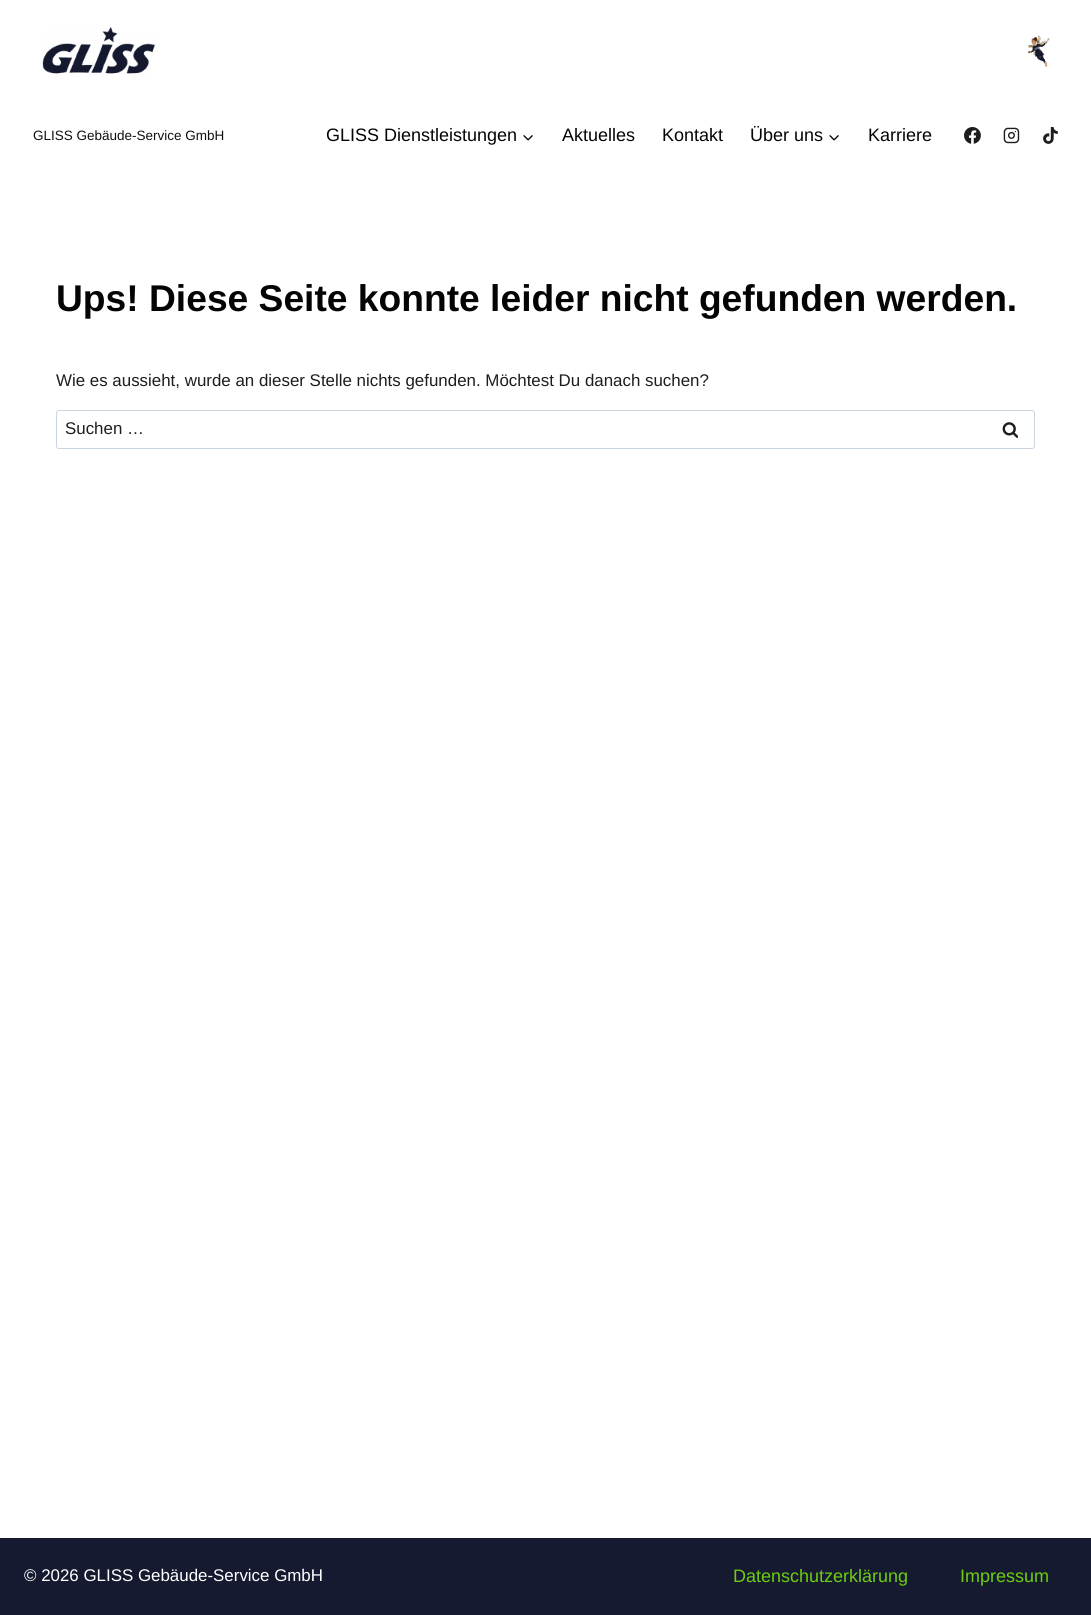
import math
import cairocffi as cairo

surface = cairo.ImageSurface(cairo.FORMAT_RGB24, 1091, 1615)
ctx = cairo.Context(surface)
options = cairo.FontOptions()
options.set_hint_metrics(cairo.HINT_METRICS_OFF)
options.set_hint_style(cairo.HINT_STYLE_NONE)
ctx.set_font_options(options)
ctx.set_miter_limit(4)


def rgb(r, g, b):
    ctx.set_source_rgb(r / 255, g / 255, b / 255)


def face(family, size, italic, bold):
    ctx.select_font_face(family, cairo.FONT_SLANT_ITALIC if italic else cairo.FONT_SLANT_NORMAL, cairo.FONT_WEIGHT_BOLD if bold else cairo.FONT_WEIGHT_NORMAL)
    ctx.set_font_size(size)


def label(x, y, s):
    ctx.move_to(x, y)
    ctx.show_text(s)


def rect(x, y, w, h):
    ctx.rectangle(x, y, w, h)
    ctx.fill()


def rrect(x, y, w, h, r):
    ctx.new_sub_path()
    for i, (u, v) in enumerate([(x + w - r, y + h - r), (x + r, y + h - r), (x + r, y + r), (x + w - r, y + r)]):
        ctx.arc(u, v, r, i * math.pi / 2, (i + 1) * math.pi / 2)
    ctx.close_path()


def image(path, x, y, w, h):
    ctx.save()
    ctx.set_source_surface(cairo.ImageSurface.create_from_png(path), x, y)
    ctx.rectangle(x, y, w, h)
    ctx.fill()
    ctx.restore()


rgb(255, 255, 255)
ctx.paint()
image('image0.png', 42, 27, 114, 47)
image('image1.png', 1027, 35, 23, 32)
face('Liberation Sans', 13.5, 0, 0)
rgb(15, 15, 15)
label(33, 140, 'GLISS Gebäude-Service GmbH')
face('Liberation Sans', 18, 0, 0)
rgb(4, 4, 4)
label(326, 141, 'GLISS Dienstleistungen')
image('image2.png', 523, 135, 10, 6)
label(562, 141, 'Aktuelles')
label(662, 141, 'Kontakt')
label(750, 141, 'Über uns')
image('image2.png', 829, 135, 10, 6)
label(868, 141, 'Karriere')
image('image3.png', 964, 127, 17, 17)
image('image4.png', 1003, 127, 17, 17)
image('image5.png', 1043, 127, 15, 17)
face('Liberation Sans', 37.2, 0, 1)
label(56, 311, 'Ups! Diese Seite konnte leider nicht gefunden werden.')
face('Liberation Sans', 16.9, 0, 0)
rgb(30, 29, 29)
label(56, 386, 'Wie es aussieht, wurde an dieser Stelle nichts gefunden. Möchtest Du danach suchen?')
rrect(56.5, 410.5, 978, 38, 2.5)
rgb(203, 213, 224)
ctx.set_line_width(1)
ctx.stroke()
rgb(30, 29, 29)
label(65, 434, 'Suchen …')
image('image6.png', 1002, 422, 16, 16)
rgb(22, 26, 48)
rect(0, 1538, 1091, 77)
rgb(255, 255, 255)
label(24, 1581, '© 2026 GLISS Gebäude-Service GmbH')
face('Liberation Sans', 18, 0, 0)
rgb(109, 206, 15)
label(733, 1582, 'Datenschutzerklärung')
label(960, 1582, 'Impressum')
surface.write_to_png('render.png')
